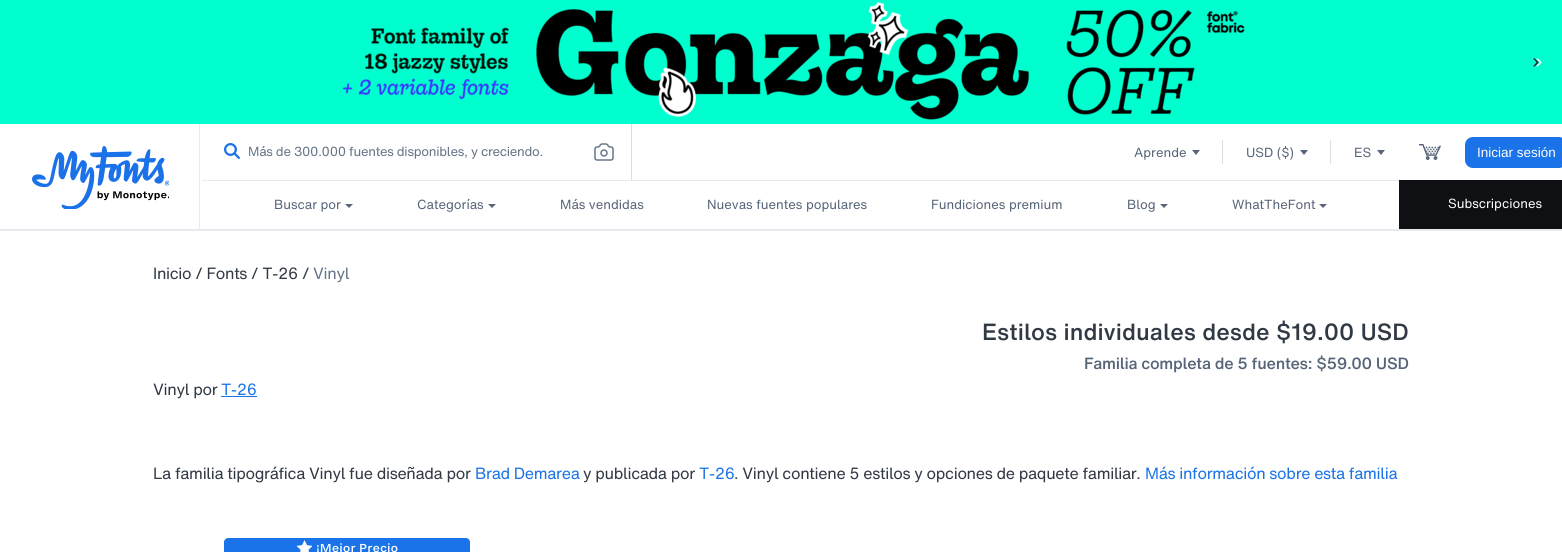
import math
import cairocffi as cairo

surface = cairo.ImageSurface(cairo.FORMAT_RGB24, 1562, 552)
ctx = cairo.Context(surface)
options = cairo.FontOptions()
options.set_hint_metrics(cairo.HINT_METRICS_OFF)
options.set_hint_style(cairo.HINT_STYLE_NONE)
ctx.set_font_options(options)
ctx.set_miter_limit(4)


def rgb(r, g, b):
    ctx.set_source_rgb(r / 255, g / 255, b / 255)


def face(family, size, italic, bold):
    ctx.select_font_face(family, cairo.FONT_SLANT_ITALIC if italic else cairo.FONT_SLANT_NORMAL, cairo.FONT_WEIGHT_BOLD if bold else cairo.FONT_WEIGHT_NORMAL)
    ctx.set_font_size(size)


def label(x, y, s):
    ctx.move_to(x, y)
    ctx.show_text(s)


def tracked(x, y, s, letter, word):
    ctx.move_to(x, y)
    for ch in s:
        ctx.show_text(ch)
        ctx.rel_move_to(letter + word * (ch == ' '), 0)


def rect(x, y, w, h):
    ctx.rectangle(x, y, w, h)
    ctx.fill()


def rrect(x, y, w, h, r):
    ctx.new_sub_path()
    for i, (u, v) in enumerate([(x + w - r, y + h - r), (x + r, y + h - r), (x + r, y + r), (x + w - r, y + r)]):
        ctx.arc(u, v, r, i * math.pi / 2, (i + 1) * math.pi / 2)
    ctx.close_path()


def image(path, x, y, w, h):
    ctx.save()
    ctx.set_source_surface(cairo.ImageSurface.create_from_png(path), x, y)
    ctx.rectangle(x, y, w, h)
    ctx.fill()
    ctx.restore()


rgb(255, 255, 255)
ctx.paint()
rgb(231, 234, 238)
rect(0, 229, 1562, 2)
rgb(0, 255, 207)
rect(0, 0, 1562, 124)
image('image0.png', 342, 1, 903, 119)
image('image1.png', 1533, 58, 9, 9)
rgb(231, 234, 238)
rect(199, 124, 1, 105)
image('image2.png', 32, 146, 137, 63)
rgb(219, 223, 229)
rect(631, 124, 1, 56)
image('image3.png', 224, 143, 16, 16)
face('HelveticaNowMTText', 13, 0, 0)
rgb(102, 116, 136)
tracked(248, 156, 'Más de 300.000 fuentes disponibles, y creciendo.', -0.25, 0)
image('image4.png', 594, 143, 20, 18)
rgb(87, 101, 121)
label(1134, 157, 'Aprende')
ctx.new_path()
ctx.move_to(1192, 150)
ctx.line_to(1200, 150)
ctx.line_to(1196, 155)
ctx.close_path()
ctx.fill()
rgb(219, 223, 229)
rect(1222, 140, 1, 24)
rgb(87, 101, 121)
label(1246, 157, 'USD ($)')
ctx.new_path()
ctx.move_to(1300, 150)
ctx.line_to(1308, 150)
ctx.line_to(1304, 155)
ctx.close_path()
ctx.fill()
rgb(219, 223, 229)
rect(1330, 140, 1, 24)
rgb(87, 101, 121)
label(1354, 157, 'ES')
ctx.new_path()
ctx.move_to(1377, 150)
ctx.line_to(1385, 150)
ctx.line_to(1381, 155)
ctx.close_path()
ctx.fill()
image('image5.png', 1419, 144, 22, 16)
rgb(26, 115, 232)
rrect(1465, 137, 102, 31, 8)
ctx.fill()
face('Liberation Sans', 13.5, 0, 0)
rgb(255, 255, 255)
label(1477, 157, 'Iniciar sesión')
rgb(231, 234, 238)
rect(202, 180, 1197, 1)
face('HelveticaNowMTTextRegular', 13, 0, 0)
rgb(87, 101, 121)
label(274, 209, 'Buscar por')
ctx.new_path()
ctx.move_to(345, 204)
ctx.line_to(353, 204)
ctx.line_to(349, 208)
ctx.close_path()
ctx.fill()
label(417, 209, 'Categorías')
ctx.new_path()
ctx.move_to(488, 204)
ctx.line_to(496, 204)
ctx.line_to(492, 208)
ctx.close_path()
ctx.fill()
label(560, 209, 'Más vendidas')
label(707, 209, 'Nuevas fuentes populares')
label(931, 209, 'Fundiciones premium')
label(1127, 209, 'Blog')
ctx.new_path()
ctx.move_to(1160, 204)
ctx.line_to(1168, 204)
ctx.line_to(1164, 208)
ctx.close_path()
ctx.fill()
label(1232, 209, 'WhatTheFont')
ctx.new_path()
ctx.move_to(1319, 204)
ctx.line_to(1327, 204)
ctx.line_to(1323, 208)
ctx.close_path()
ctx.fill()
rgb(14, 16, 19)
rect(1399, 180, 163, 49)
rgb(255, 255, 255)
label(1448, 208, 'Subscripciones')
face('HelveticaNowMTTextRegular', 16, 0, 0)
rgb(49, 57, 69)
tracked(153, 279, 'Inicio / Fonts / T-26 /', -0.32, 0)
rgb(102, 116, 136)
tracked(313, 279, 'Vinyl', -0.32, 0)
face('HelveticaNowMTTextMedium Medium', 23, 0, 0)
rgb(49, 57, 69)
label(982, 340, 'Estilos individuales desde $19.00 USD')
face('HelveticaNowMTTextMedium Medium', 16, 0, 0)
rgb(87, 101, 121)
tracked(1084, 369, 'Familia completa de 5 fuentes: $59.00 USD', -0.32, 0)
face('HelveticaNowMTText', 16, 0, 0)
rgb(49, 57, 69)
tracked(153, 395, 'Vinyl por', -0.32, 0)
rgb(26, 115, 232)
tracked(221, 395, 'T-26', -0.32, 0)
rect(221, 396, 36, 1)
face('HelveticaNowMTTextRegular', 16, 0, 0)
rgb(49, 57, 69)
tracked(153, 479, 'La familia tipográfica Vinyl fue diseñada por', -0.32, 0)
rgb(26, 115, 232)
tracked(475, 479, 'Brad Demarea', -0.32, 0)
rgb(49, 57, 69)
tracked(583, 479, 'y publicada por', -0.32, 0)
rgb(26, 115, 232)
tracked(699, 479, 'T-26', -0.32, 0)
rgb(49, 57, 69)
tracked(734, 479, '. Vinyl contiene 5 estilos y opciones de paquete familiar.', -0.32, 0)
rgb(26, 115, 232)
tracked(1145, 479, 'Más información sobre esta familia', -0.32, 0)
ctx.new_path()
ctx.move_to(228, 538)
ctx.line_to(466, 538)
ctx.curve_to(468, 538, 470, 540, 470, 542)
ctx.line_to(470, 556)
ctx.line_to(224, 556)
ctx.line_to(224, 542)
ctx.curve_to(224, 540, 226, 538, 228, 538)
ctx.close_path()
ctx.fill()
image('image6.png', 296, 540, 16, 12)
face('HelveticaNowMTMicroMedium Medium', 11, 0, 0)
rgb(255, 255, 255)
label(316, 552, '¡Mejor Precio')
surface.write_to_png('render.png')
